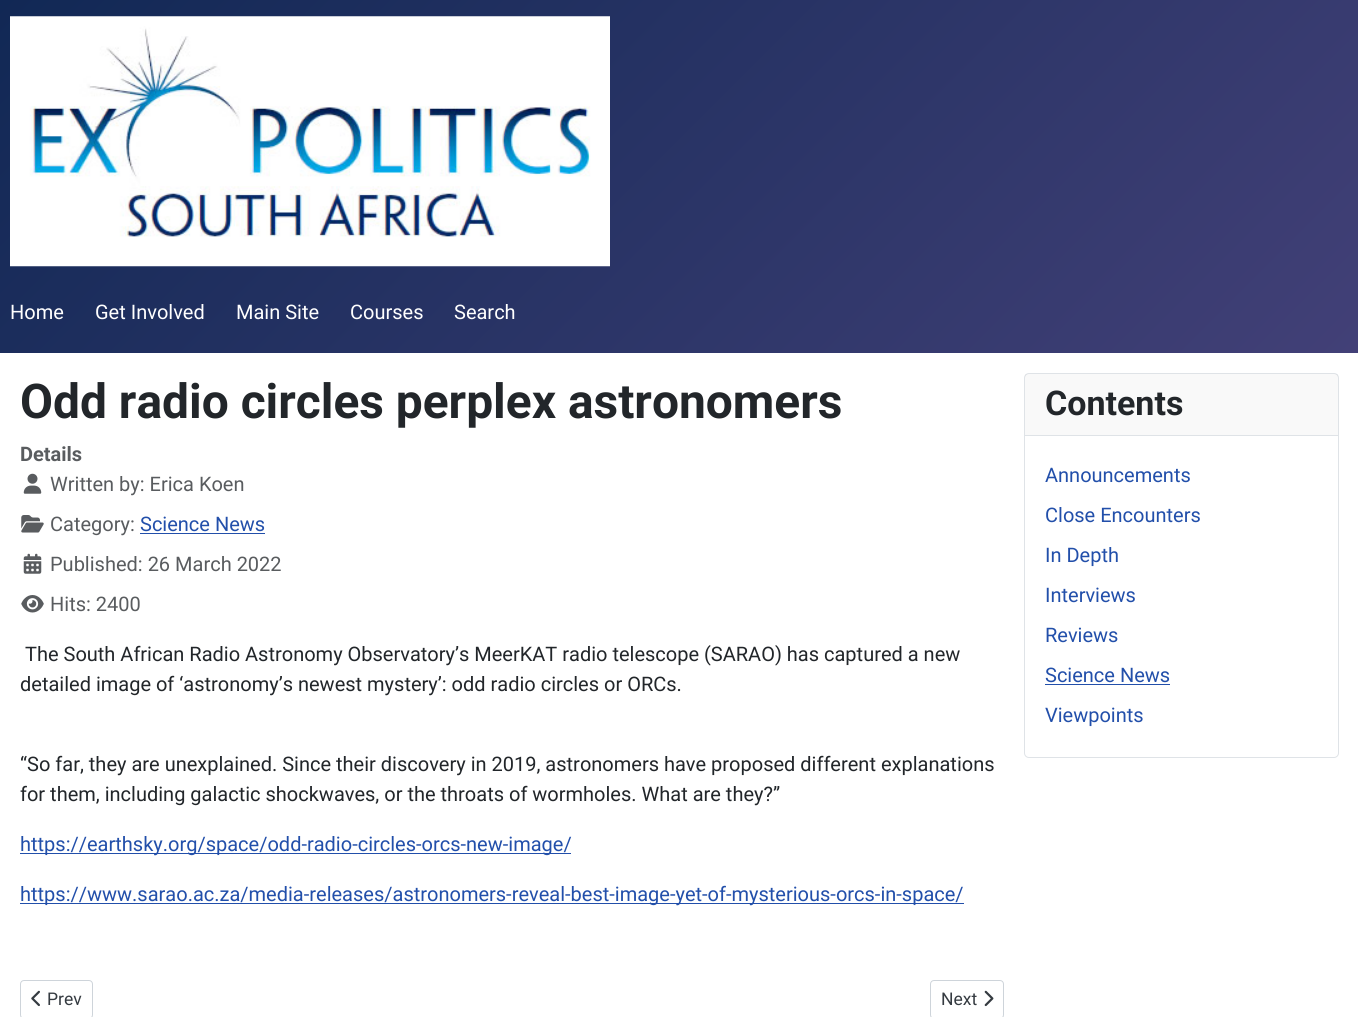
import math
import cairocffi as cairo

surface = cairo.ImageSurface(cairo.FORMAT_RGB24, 1358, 1017)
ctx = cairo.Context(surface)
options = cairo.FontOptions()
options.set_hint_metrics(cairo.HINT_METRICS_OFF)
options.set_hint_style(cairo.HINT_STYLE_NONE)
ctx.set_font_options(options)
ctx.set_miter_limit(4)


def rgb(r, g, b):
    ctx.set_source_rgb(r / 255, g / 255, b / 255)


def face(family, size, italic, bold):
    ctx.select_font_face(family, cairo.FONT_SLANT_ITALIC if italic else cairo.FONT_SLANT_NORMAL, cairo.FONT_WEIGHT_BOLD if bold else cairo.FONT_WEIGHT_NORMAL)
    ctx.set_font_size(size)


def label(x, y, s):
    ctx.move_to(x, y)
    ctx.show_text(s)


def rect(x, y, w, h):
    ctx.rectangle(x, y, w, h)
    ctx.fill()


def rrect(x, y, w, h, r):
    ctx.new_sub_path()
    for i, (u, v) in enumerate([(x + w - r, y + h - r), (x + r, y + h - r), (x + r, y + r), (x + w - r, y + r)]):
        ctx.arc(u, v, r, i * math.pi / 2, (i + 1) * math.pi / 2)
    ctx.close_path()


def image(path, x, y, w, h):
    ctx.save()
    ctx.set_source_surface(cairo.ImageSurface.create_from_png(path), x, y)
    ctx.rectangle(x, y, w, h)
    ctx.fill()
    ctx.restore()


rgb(255, 255, 255)
ctx.paint()
gradient = cairo.LinearGradient(252, -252, 1107, 604)
gradient.add_color_stop_rgba(0, 0.067, 0.157, 0.333, 1)
gradient.add_color_stop_rgba(1, 0.259, 0.251, 0.467, 1)
ctx.set_source(gradient)
rect(0, 0, 1358, 353)
image('image0.png', 10, 16, 600, 251)
face('Roboto', 20, 0, 0)
rgb(255, 255, 255)
label(10, 319, 'Home')
label(95, 319, 'Get Involved')
label(236, 319, 'Main Site')
label(350, 319, 'Courses')
label(454, 319, 'Search')
face('Roboto', 47.9, 0, 1)
rgb(34, 38, 42)
label(20, 418, 'Odd radio circles perplex astronomers')
face('Roboto', 20, 0, 1)
rgb(89, 92, 95)
label(20, 461, 'Details')
image('image1.png', 23, 473, 19, 21)
face('Roboto', 20, 0, 0)
label(50, 491, 'Written by: Erica Koen')
image('image2.png', 21, 515, 23, 18)
label(50, 531, 'Category:')
rgb(34, 79, 170)
label(140, 531, 'Science News')
rect(140, 533, 125, 1)
image('image3.png', 23, 553, 19, 21)
rgb(89, 92, 95)
label(50, 571, 'Published: 26 March 2022')
image('image4.png', 21, 595, 23, 18)
label(50, 611, 'Hits: 2400')
rgb(34, 38, 42)
label(25, 661, 'The South African Radio Astronomy Observatory’s MeerKAT radio telescope (SARAO) has captured a new')
label(20, 691, 'detailed image of ‘astronomy’s newest mystery’: odd radio circles or ORCs.')
label(20, 771, '“So far, they are unexplained. Since their discovery in 2019, astronomers have proposed different explanations')
label(20, 801, 'for them, including galactic shockwaves, or the throats of wormholes. What are they?”')
rgb(34, 79, 170)
rect(20, 853, 551, 1)
label(20, 851, 'https://earthsky.org/space/odd-radio-circles-orcs-new-image/')
rect(20, 903, 944, 1)
label(20, 901, 'https://www.sarao.ac.za/media-releases/astronomers-reveal-best-image-yet-of-mysterious-orcs-in-space/')
rrect(20.5, 980.5, 72, 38, 3.5)
rgb(206, 212, 218)
ctx.set_line_width(1)
ctx.stroke()
image('image5.png', 31, 990, 9, 17)
face('Roboto', 17.5, 0, 0)
rgb(53, 59, 65)
label(47, 1005, 'Prev')
rrect(930.5, 980.5, 73, 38, 3.5)
rgb(206, 212, 218)
ctx.stroke()
rgb(53, 59, 65)
label(941, 1005, 'Next')
image('image6.png', 984, 990, 10, 17)
rrect(1024.5, 373.5, 314, 384, 4.5)
rgb(223, 227, 231)
ctx.stroke()
ctx.set_source_rgba(0.133, 0.149, 0.165, 0.03)
rect(1025, 374, 313, 61)
rgb(223, 227, 231)
rect(1025, 435, 313, 1)
face('Roboto', 34, 0, 1)
rgb(34, 38, 42)
label(1045, 415, 'Contents')
face('Roboto', 20, 0, 0)
rgb(34, 79, 170)
label(1045, 482, 'Announcements')
label(1045, 522, 'Close Encounters')
label(1045, 562, 'In Depth')
label(1045, 602, 'Interviews')
label(1045, 642, 'Reviews')
label(1045, 682, 'Science News')
rect(1045, 684, 125, 1)
label(1045, 722, 'Viewpoints')
surface.write_to_png('render.png')
